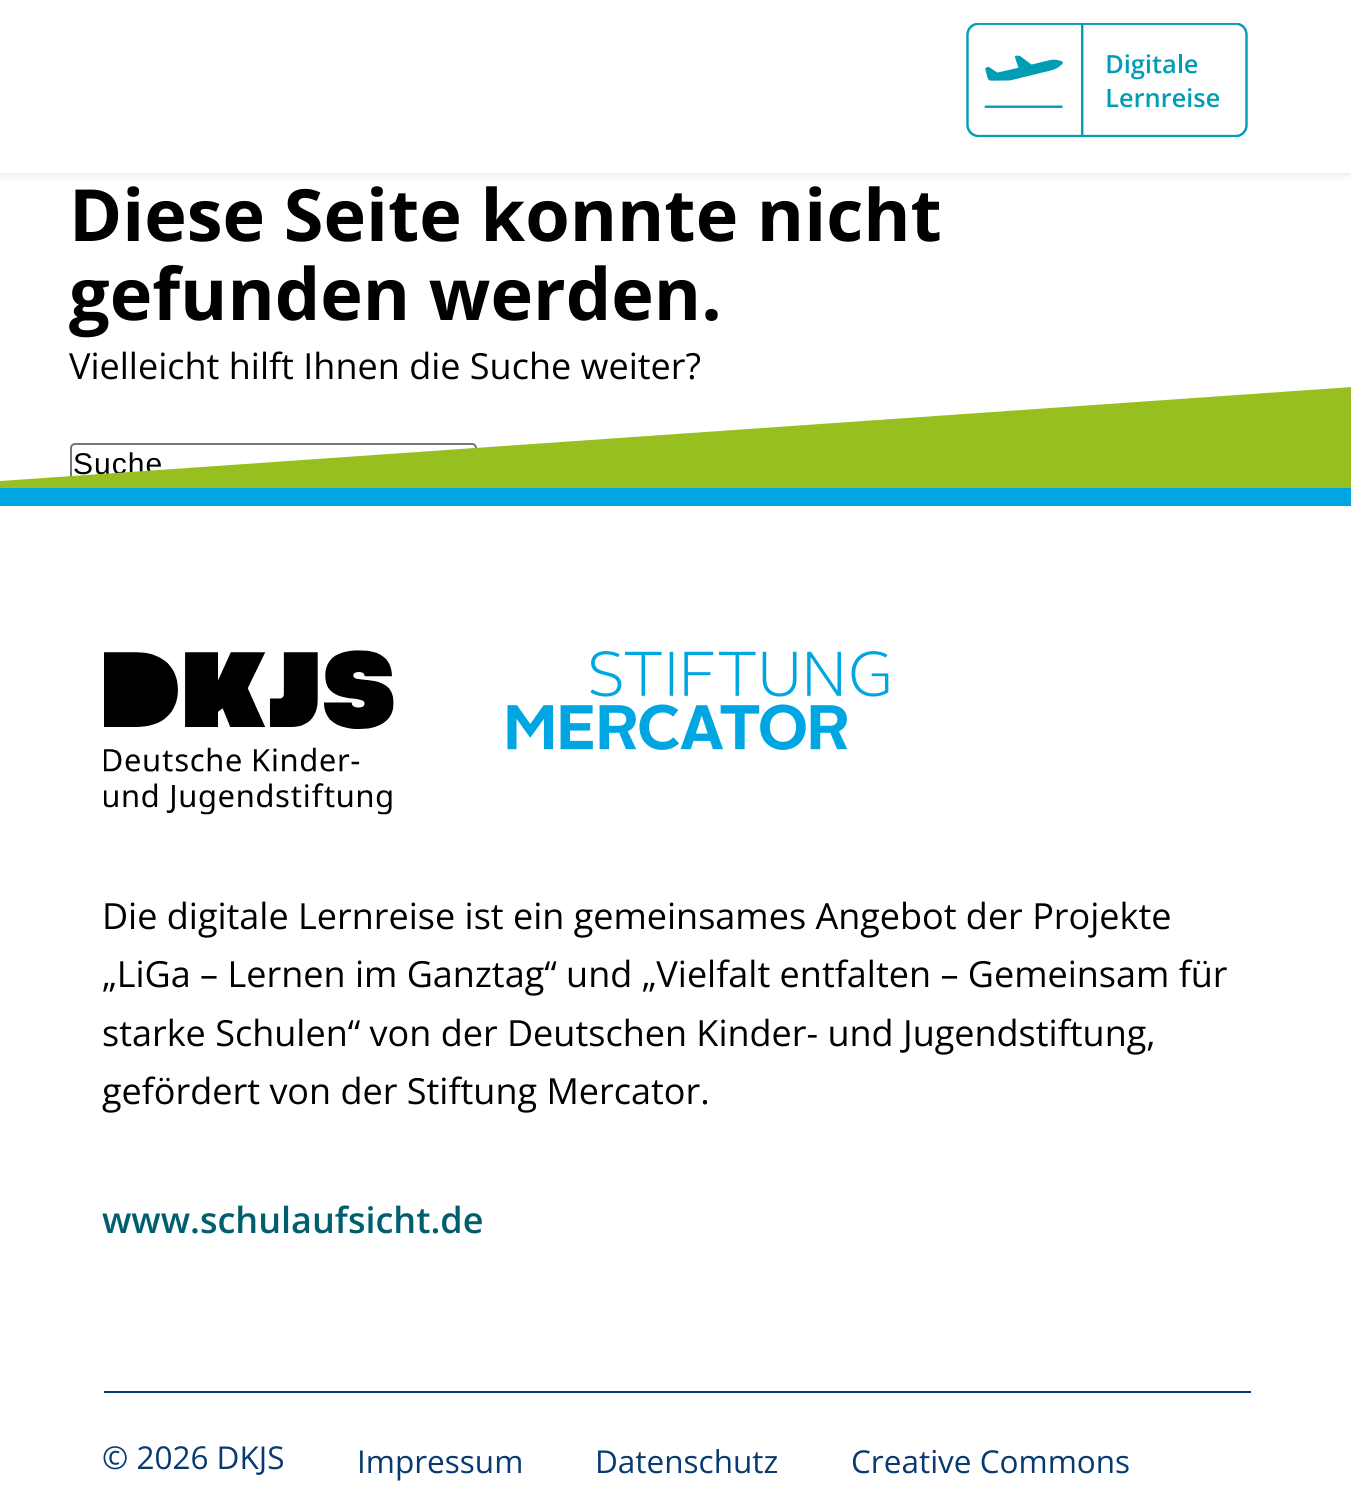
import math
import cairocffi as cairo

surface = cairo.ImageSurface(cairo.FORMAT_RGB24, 1351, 1505)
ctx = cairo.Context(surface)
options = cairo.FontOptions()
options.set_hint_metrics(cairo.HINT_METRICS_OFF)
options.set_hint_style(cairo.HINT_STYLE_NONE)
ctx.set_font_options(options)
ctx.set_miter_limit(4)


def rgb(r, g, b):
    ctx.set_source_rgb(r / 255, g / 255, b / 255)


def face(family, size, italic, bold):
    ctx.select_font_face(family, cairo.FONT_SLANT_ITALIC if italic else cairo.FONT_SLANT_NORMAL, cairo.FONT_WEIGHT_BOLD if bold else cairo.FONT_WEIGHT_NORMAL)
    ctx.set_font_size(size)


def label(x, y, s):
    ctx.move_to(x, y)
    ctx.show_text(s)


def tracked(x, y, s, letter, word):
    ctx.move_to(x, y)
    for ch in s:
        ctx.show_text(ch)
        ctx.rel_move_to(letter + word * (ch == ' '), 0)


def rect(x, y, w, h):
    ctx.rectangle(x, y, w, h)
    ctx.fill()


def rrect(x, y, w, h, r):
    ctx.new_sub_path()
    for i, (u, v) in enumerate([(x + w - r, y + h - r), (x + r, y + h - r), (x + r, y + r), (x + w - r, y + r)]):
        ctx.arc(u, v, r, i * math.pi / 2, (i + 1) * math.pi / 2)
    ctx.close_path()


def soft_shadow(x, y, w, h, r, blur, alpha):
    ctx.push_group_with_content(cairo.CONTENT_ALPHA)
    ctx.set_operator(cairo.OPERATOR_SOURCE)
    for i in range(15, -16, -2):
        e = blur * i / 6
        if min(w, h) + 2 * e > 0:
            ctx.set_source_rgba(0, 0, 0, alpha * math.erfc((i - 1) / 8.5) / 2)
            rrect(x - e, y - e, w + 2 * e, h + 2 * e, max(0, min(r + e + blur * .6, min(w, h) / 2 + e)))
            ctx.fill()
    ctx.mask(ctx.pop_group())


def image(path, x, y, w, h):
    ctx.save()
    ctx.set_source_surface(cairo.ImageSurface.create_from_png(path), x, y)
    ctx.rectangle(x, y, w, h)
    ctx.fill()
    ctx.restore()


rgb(255, 255, 255)
ctx.paint()
ctx.save()
ctx.rectangle(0, 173, 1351, 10)
ctx.clip()
rgb(238, 238, 238)
soft_shadow(0, 2, 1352, 174, 0, 3.5, 1)
ctx.restore()
image('image0.png', 966, 23, 282, 114)
face('Open Sans', 72, 0, 1)
rgb(0, 0, 0)
label(69, 241, 'Diese Seite konnte nicht')
label(69, 320, 'gefunden werden.')
face('Open Sans', 36, 0, 0)
label(69, 379, 'Vielleicht hilft Ihnen die Suche weiter?')
rrect(71, 444, 405, 41, 4)
rgb(118, 118, 118)
ctx.stroke()
face('Liberation Sans', 30, 0, 0)
rgb(0, 0, 0)
tracked(73, 474, 'Suche', 1, 0)
rgb(151, 191, 32)
ctx.new_path()
ctx.move_to(0, 481)
ctx.line_to(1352, 387)
ctx.line_to(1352, 747)
ctx.line_to(0, 841)
ctx.close_path()
ctx.fill()
rgb(255, 255, 255)
rect(0, 506, 1351, 335)
rgb(0, 166, 226)
rect(0, 488, 1351, 18)
image('image1.png', 104, 650, 290, 165)
image('image2.png', 507, 651, 382, 99)
face('Open Sans', 36, 0, 0)
rgb(0, 0, 0)
label(102, 929, 'Die digitale Lernreise ist ein gemeinsames Angebot der Projekte')
label(102, 987, '„LiGa – Lernen im Ganztag“ und „Vielfalt entfalten – Gemeinsam für')
label(102, 1046, 'starke Schulen“ von der Deutschen Kinder- und Jugendstiftung,')
label(102, 1104, 'gefördert von der Stiftung Mercator.')
face('Open Sans SemiBold', 36, 0, 0)
rgb(0, 94, 109)
label(102, 1233, 'www.schulaufsicht.de')
rgb(8, 57, 113)
rect(104, 1391, 1147, 2)
face('Open Sans', 31.5, 0, 0)
label(102, 1469, '© 2026 DKJS')
label(357, 1473, 'Impressum')
label(595, 1473, 'Datenschutz')
label(851, 1473, 'Creative Commons')
surface.write_to_png('render.png')
